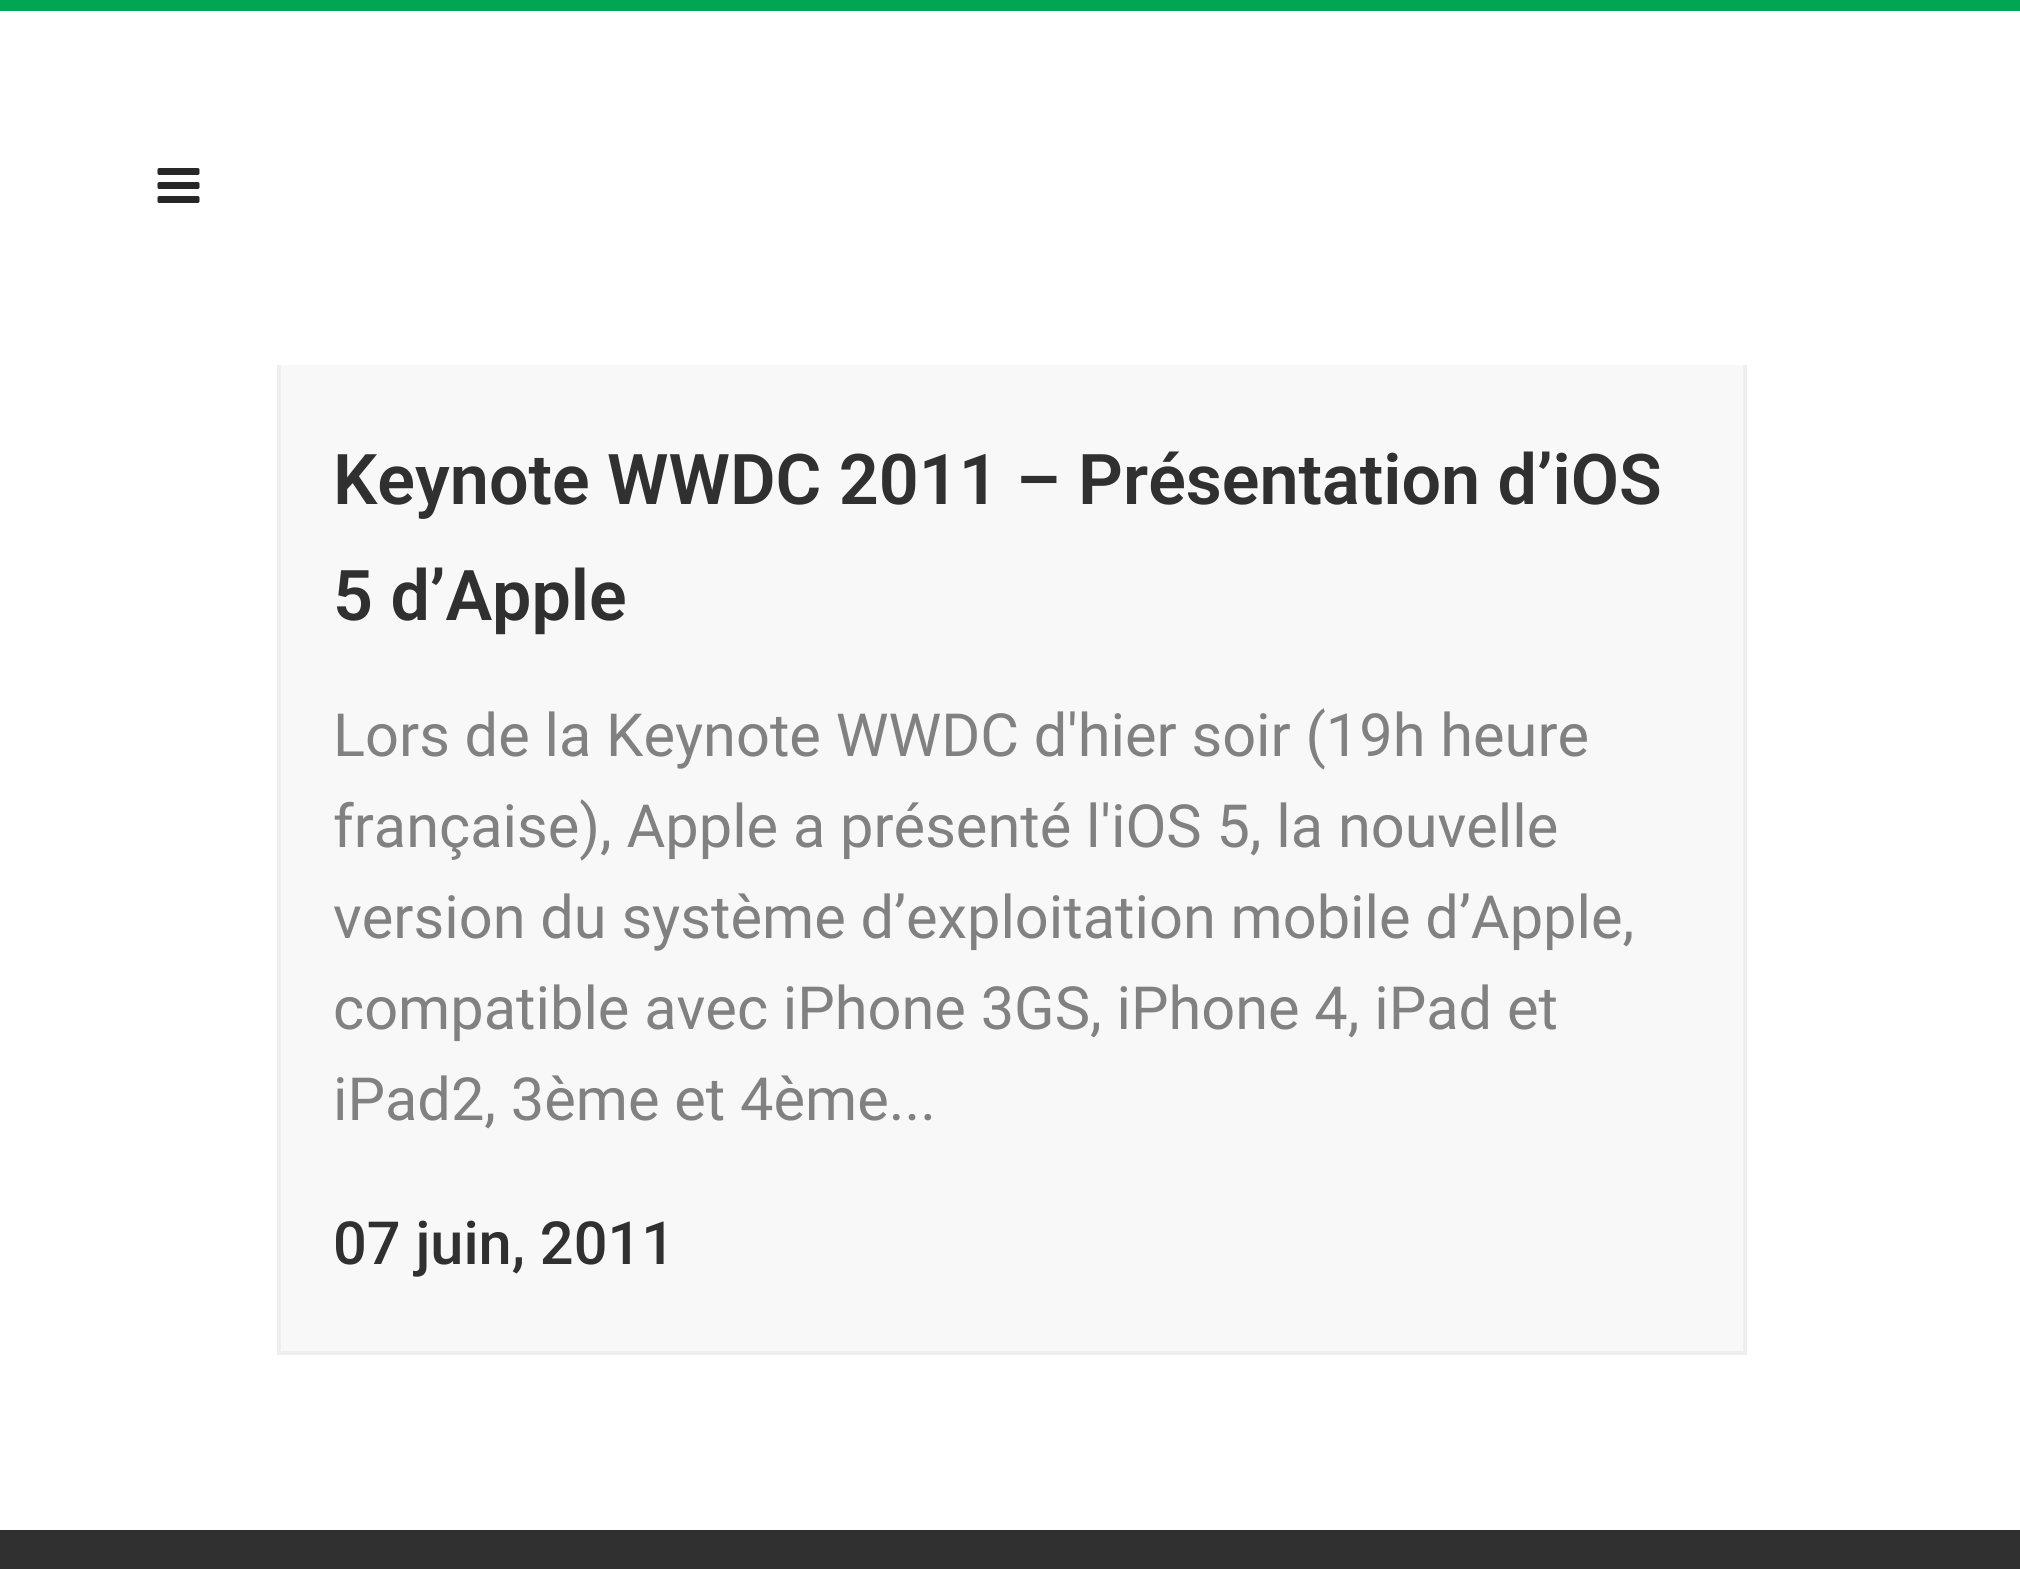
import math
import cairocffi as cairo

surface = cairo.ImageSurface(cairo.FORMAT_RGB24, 2020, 1569)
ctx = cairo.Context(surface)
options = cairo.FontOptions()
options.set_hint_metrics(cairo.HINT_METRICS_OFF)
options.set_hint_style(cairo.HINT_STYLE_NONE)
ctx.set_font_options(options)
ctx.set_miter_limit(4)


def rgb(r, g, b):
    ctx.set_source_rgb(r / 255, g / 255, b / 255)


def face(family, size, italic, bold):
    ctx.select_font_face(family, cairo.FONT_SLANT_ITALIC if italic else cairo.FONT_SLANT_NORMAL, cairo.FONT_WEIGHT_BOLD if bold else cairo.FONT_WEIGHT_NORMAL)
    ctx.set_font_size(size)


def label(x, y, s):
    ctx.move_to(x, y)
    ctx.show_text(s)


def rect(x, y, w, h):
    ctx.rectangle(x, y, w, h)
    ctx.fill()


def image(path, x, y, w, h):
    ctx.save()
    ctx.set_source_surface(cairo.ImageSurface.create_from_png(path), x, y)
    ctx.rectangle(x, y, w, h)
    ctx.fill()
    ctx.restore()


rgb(255, 255, 255)
ctx.paint()
rgb(0, 166, 81)
rect(0, 0, 2020, 11)
rgb(238, 238, 238)
rect(1743, 364, 4, 991)
rect(280, 1351, 1467, 4)
rect(277, 364, 4, 991)
rgb(255, 255, 255)
rect(277, 364, 1470, 1)
image('image0.png', 157, 168, 43, 35)
rgb(248, 248, 248)
rect(281, 365, 1462, 986)
face('Roboto SemiBold', 70, 0, 0)
rgb(48, 48, 48)
label(333, 504, 'Keynote WWDC 2011 – Présentation d’iOS')
label(333, 620, '5 d’Apple')
face('Roboto', 59.5, 0, 0)
rgb(129, 129, 129)
label(333, 756, 'Lors de la Keynote WWDC d\'hier soir (19h heure')
label(333, 847, 'française), Apple a présenté l\'iOS 5, la nouvelle')
label(333, 938, 'version du système d’exploitation mobile d’Apple,')
label(333, 1029, 'compatible avec iPhone 3GS, iPhone 4, iPad et')
label(333, 1120, 'iPad2, 3ème et 4ème...')
face('Roboto Medium', 59.5, 0, 0)
rgb(48, 48, 48)
label(333, 1264, '07 juin, 2011')
rect(0, 1530, 2020, 39)
surface.write_to_png('render.png')
